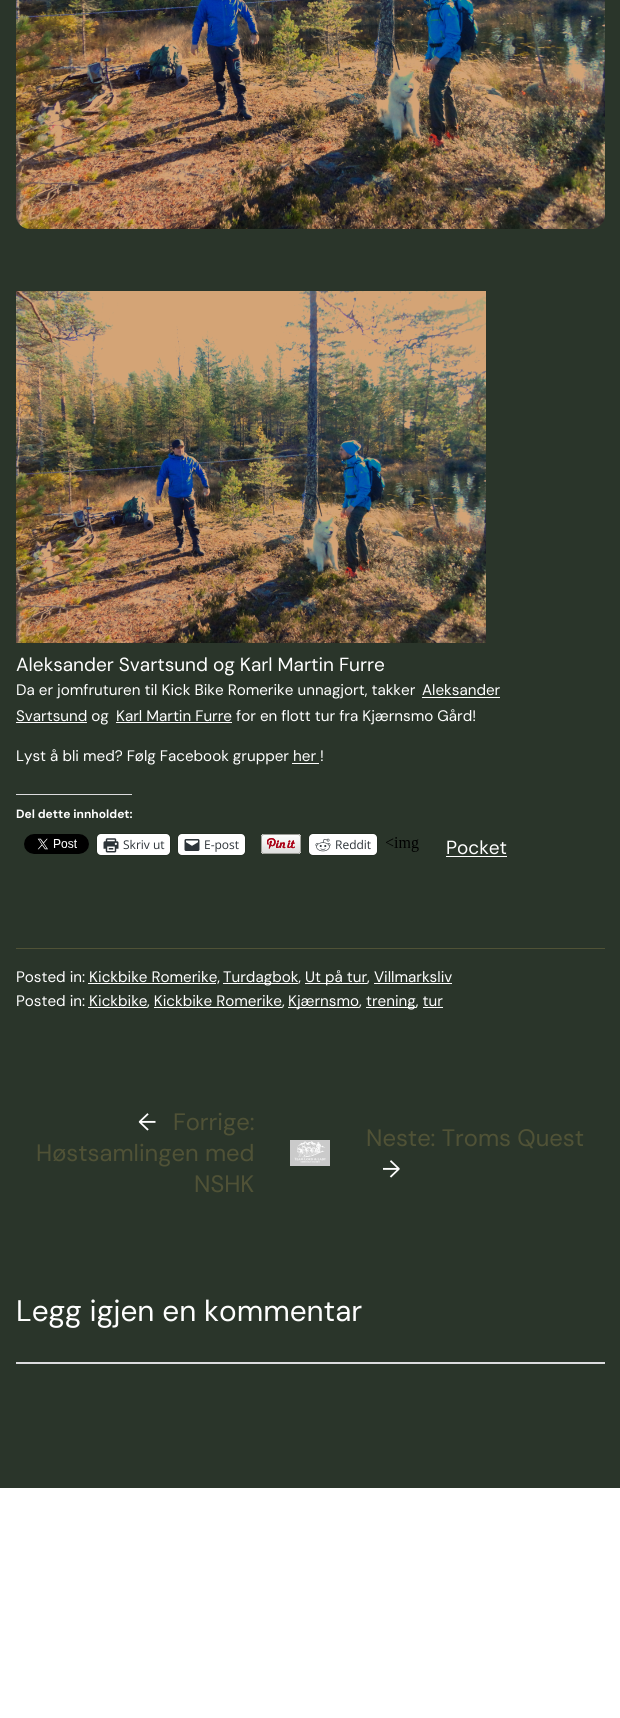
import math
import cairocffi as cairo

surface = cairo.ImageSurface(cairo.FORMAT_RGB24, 620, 1718)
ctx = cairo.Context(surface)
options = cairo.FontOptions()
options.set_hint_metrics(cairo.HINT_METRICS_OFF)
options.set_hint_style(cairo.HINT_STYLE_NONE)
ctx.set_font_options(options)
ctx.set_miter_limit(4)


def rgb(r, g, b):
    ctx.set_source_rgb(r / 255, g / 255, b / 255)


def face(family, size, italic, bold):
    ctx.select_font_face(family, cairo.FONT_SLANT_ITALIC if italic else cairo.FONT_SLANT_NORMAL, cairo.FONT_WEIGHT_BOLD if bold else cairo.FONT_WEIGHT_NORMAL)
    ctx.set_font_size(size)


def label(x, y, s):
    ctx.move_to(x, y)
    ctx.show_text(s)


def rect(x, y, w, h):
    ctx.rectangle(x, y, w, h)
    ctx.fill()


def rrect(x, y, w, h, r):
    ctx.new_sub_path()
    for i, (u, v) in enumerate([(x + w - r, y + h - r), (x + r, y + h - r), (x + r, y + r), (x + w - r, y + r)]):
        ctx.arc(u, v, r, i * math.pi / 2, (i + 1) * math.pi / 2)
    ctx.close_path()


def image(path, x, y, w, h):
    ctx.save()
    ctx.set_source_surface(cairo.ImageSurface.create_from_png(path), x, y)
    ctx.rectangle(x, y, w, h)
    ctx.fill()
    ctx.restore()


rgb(42, 53, 42)
ctx.paint()
image('image0.png', 16, 0, 589, 229)
image('image1.png', 16, 291, 470, 352)
face('DM Sans', 19, 0, 0)
rgb(255, 255, 255)
label(16, 671, 'Aleksander Svartsund og Karl Martin Furre')
face('DM Sans', 15.2, 0, 0)
label(16, 695, 'Da er jomfruturen til Kick Bike Romerike unnagjort, takker')
label(422, 695, 'Aleksander')
rect(422, 697, 78, 1)
rect(16, 722, 71, 1)
label(16, 721, 'Svartsund og')
rect(116, 722, 116, 1)
label(116, 721, 'Karl Martin Furre for en flott tur fra Kjærnsmo Gård!')
label(16, 761, 'Lyst å bli med? Følg Facebook grupper her !')
rect(292, 763, 27, 1)
rgb(220, 220, 222)
rect(16, 794, 116, 1)
face('DM Sans', 12, 0, 1)
rgb(255, 255, 255)
label(16, 818, 'Del dette innholdet:')
image('image2.png', 24, 834, 65, 20)
rrect(96.5, 833.5, 74, 22, 4.5)
rgb(37, 47, 37)
ctx.set_line_width(1)
ctx.stroke()
rgb(255, 255, 255)
rrect(97, 834, 73, 21, 4)
ctx.fill()
image('image3.png', 103, 838, 16, 15)
face('Open Sans', 12, 0, 0)
rgb(44, 51, 56)
label(123, 849, 'Skriv ut')
rrect(177.5, 833.5, 68, 22, 4.5)
rgb(37, 47, 37)
ctx.stroke()
rgb(255, 255, 255)
rrect(178, 834, 67, 21, 4)
ctx.fill()
image('image4.png', 184, 839, 16, 12)
rgb(44, 51, 56)
label(204, 849, 'E-post')
image('image5.png', 261, 834, 40, 20)
rrect(308.5, 833.5, 69, 22, 4.5)
rgb(37, 47, 37)
ctx.stroke()
rgb(255, 255, 255)
rrect(309, 834, 68, 21, 4)
ctx.fill()
image('image6.png', 315, 838, 16, 14)
rgb(44, 51, 56)
label(335, 849, 'Reddit')
image('image7.png', 386, 837, 33, 15)
face('DM Sans', 19, 0, 0)
rgb(255, 255, 255)
label(446, 854, 'Pocket')
rect(446, 856, 61, 1)
rgb(80, 82, 54)
rect(16, 948, 589, 1)
face('DM Sans', 15.2, 0, 0)
rgb(255, 255, 255)
label(16, 982, 'Posted in: Kickbike Romerike,')
rect(223, 983, 75, 1)
label(223, 982, 'Turdagbok,')
rect(305, 983, 62, 1)
label(305, 982, 'Ut på tur, Villmarksliv')
rect(88, 983, 128, 1)
rect(374, 983, 78, 1)
label(16, 1006, 'Posted in: Kickbike')
rect(88, 1007, 59, 1)
label(147, 1006, ', Kickbike Romerike')
rect(154, 1007, 128, 1)
label(282, 1006, ',')
rect(288, 1007, 71, 1)
label(288, 1006, 'Kjærnsmo,')
rect(366, 1007, 50, 1)
label(366, 1006, 'trening, tur')
rect(423, 1007, 20, 1)
face('DM Sans', 23.75, 0, 0)
label(138, 1130, '←')
rgb(80, 82, 54)
label(173, 1130, 'Forrige:')
label(36, 1161, 'Høstsamlingen med')
label(194, 1192, 'NSHK')
image('image8.png', 290, 1140, 40, 26)
label(366, 1146, 'Neste: Troms Quest')
rgb(255, 255, 255)
label(382, 1177, '→')
face('DM Sans', 29.7, 0, 0)
label(16, 1321, 'Legg igjen en kommentar')
rgb(220, 220, 222)
rect(16, 1362, 589, 2)
rgb(255, 255, 255)
rect(0, 1488, 620, 230)
surface.write_to_png('render.png')
